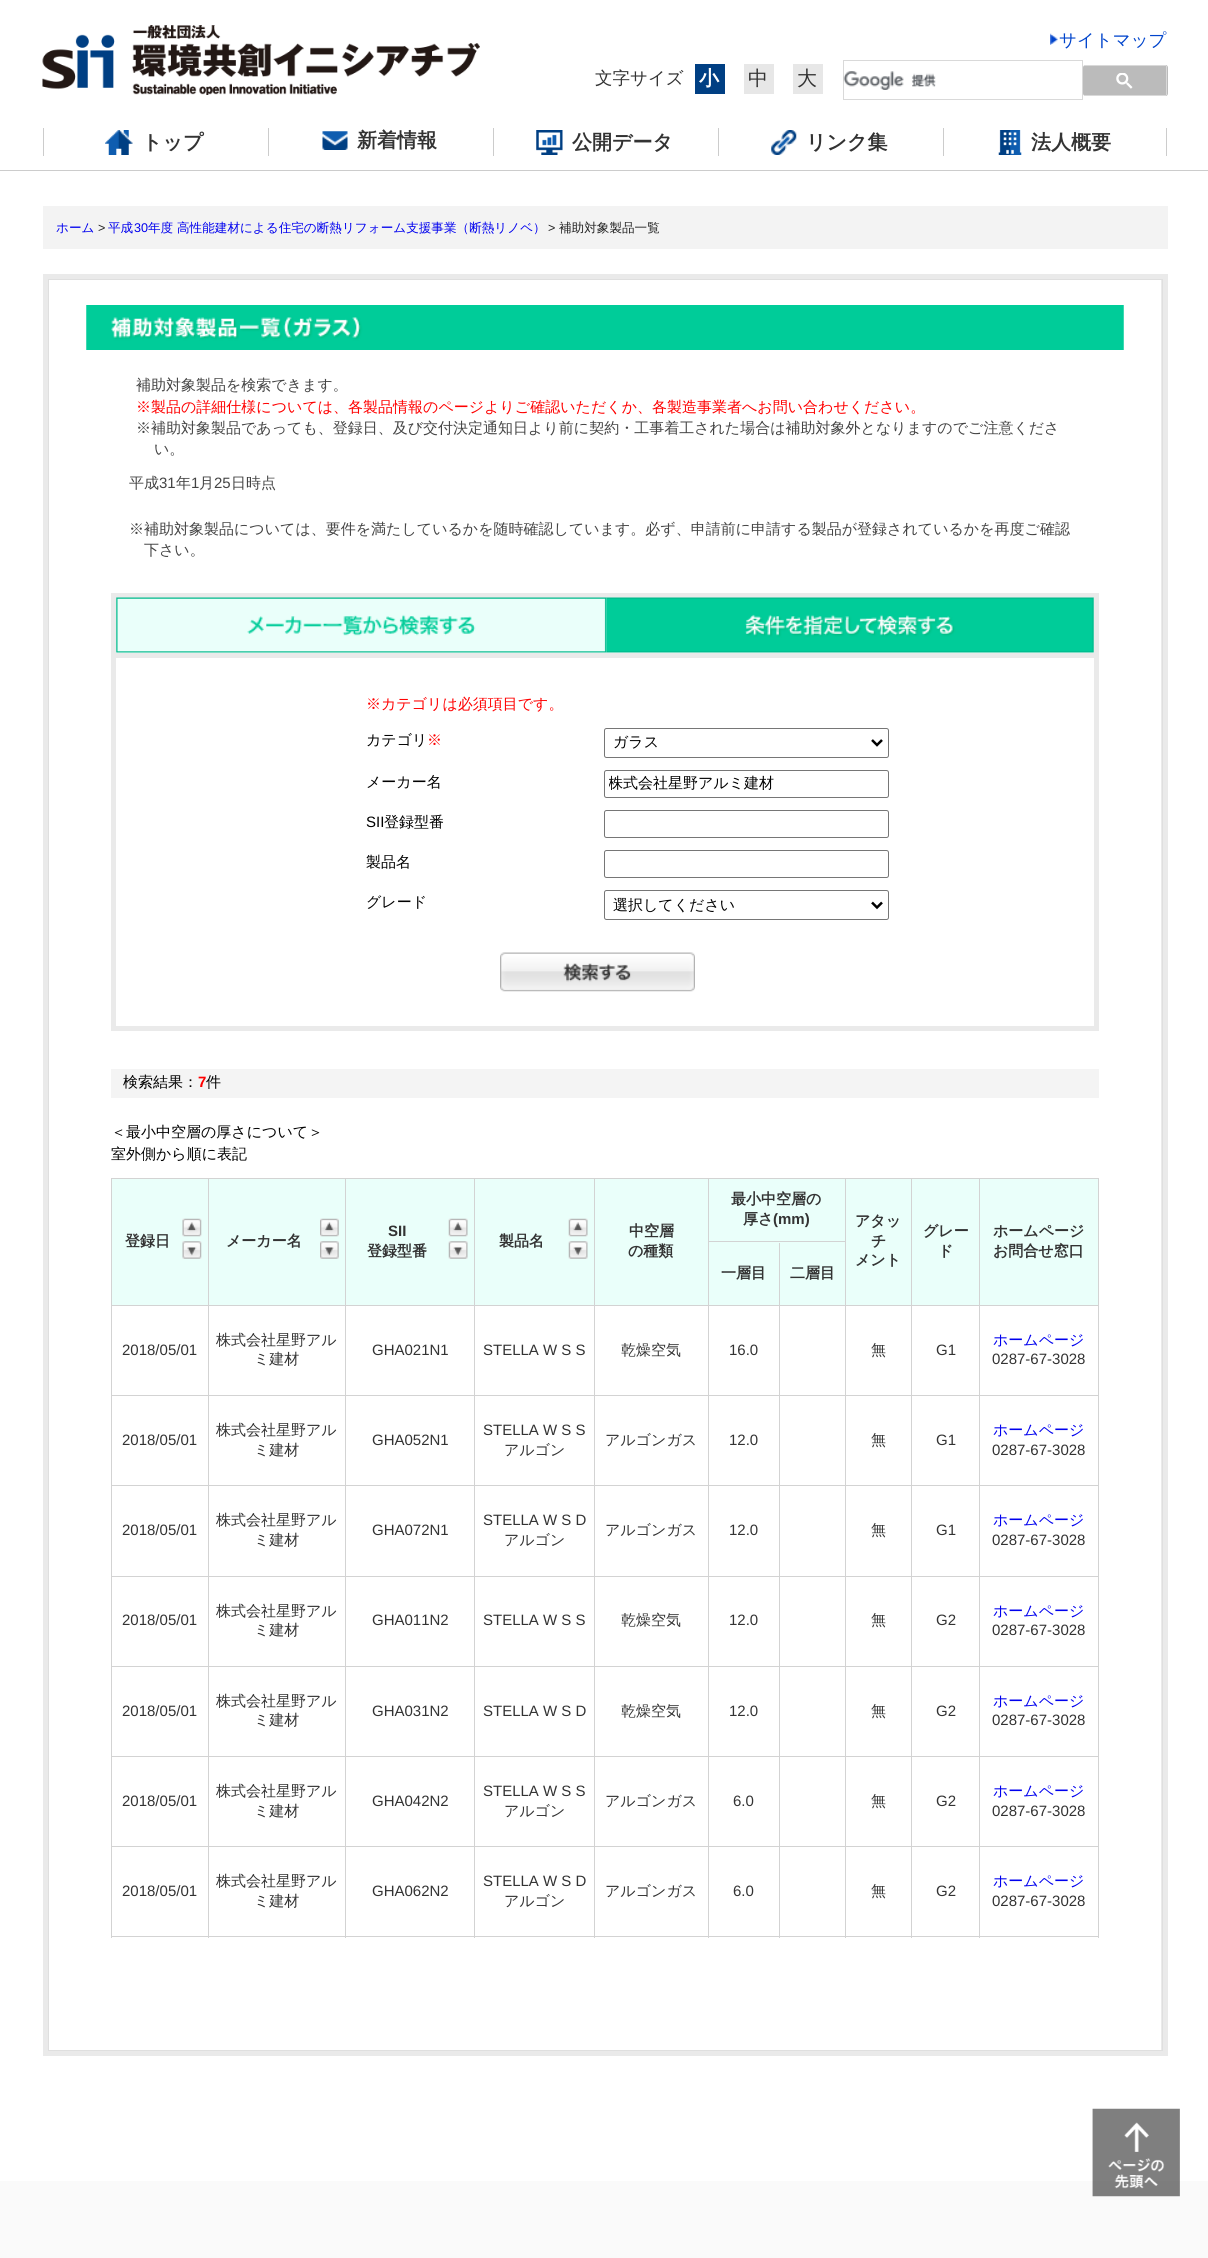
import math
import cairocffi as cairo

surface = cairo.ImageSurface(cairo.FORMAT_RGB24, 1208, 2258)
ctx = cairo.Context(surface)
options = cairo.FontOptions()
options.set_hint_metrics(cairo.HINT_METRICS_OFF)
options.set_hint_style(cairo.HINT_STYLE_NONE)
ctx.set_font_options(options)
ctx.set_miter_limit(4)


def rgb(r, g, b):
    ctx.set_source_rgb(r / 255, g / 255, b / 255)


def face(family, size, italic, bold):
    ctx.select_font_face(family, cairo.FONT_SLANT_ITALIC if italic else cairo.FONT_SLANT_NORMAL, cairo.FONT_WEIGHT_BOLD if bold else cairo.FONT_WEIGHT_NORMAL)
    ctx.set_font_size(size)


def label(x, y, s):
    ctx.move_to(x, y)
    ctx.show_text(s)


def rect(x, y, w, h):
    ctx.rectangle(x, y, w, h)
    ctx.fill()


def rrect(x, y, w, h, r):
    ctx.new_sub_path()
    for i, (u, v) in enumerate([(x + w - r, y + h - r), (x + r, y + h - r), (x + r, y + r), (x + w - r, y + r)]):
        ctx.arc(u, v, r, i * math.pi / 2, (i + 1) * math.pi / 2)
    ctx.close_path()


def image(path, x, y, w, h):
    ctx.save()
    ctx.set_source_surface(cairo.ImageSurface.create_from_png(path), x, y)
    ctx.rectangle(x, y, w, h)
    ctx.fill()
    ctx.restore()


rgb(255, 255, 255)
ctx.paint()
image('image0.png', 42, 25, 438, 70)
image('image1.png', 1050, 33, 8, 12)
face('WenQuanYi Zen Hei Medium', 17.5, 0, 0)
rgb(0, 68, 204)
label(1059, 46, 'サイトマップ')
rgb(51, 51, 51)
label(595, 84, '文字サイズ')
rgb(0, 63, 131)
rect(695, 64, 30, 30)
face('WenQuanYi Zen Hei', 20, 0, 1)
rgb(255, 255, 255)
label(699, 85, '小')
rgb(231, 231, 231)
rect(744, 64, 30, 30)
face('WenQuanYi Zen Hei Medium', 20, 0, 0)
rgb(51, 51, 51)
label(748, 85, '中')
rgb(231, 231, 231)
rect(793, 64, 30, 30)
rgb(51, 51, 51)
label(797, 85, '大')
ctx.rectangle(843.5, 60.5, 239, 39)
rgb(217, 217, 217)
ctx.set_line_width(1)
ctx.stroke()
image('image2.png', 843, 71, 93, 19)
rgb(187, 187, 187)
rrect(1083, 65, 85, 31, 2.5)
ctx.fill()
rgb(217, 217, 217)
rect(1084, 65, 82, 1)
rect(1166, 66, 1, 29)
rect(1084, 95, 82, 1)
image('image3.png', 1116, 73, 17, 16)
rgb(204, 204, 204)
rect(0, 170, 1208, 1)
image('image4.png', 105, 130, 28, 25)
rect(43, 128, 1, 28)
face('WenQuanYi Zen Hei', 20, 0, 1)
rgb(51, 51, 51)
label(142, 149, 'トップ')
image('image5.png', 322, 131, 26, 19)
rgb(204, 204, 204)
rect(268, 128, 1, 28)
rgb(51, 51, 51)
label(357, 147, '新着情報')
image('image6.png', 536, 130, 27, 25)
rgb(204, 204, 204)
rect(493, 128, 1, 28)
rgb(51, 51, 51)
label(572, 149, '公開データ')
image('image7.png', 771, 130, 26, 25)
rgb(204, 204, 204)
rect(718, 128, 1, 28)
rgb(51, 51, 51)
label(806, 149, 'リンク集')
image('image8.png', 998, 130, 24, 25)
rgb(204, 204, 204)
rect(943, 128, 1, 28)
rgb(51, 51, 51)
label(1031, 149, '法人概要')
rgb(204, 204, 204)
rect(1166, 128, 1, 28)
rgb(243, 243, 243)
rect(43, 206, 1125, 43)
face('WenQuanYi Zen Hei Medium', 12.6, 0, 0)
rgb(0, 0, 238)
label(56, 232, 'ホーム')
face('Liberation Sans', 12.6, 0, 0)
rgb(34, 34, 34)
label(98, 232, '>')
face('WenQuanYi Zen Hei Medium', 12.6, 0, 0)
rgb(0, 0, 238)
label(108, 232, '平成')
face('Liberation Sans', 12.6, 0, 0)
label(134, 232, '30')
face('WenQuanYi Zen Hei Medium', 12.6, 0, 0)
label(148, 232, '年度 高性能建材による住宅の断熱リフォーム支援事業（断熱リノベ）')
face('Liberation Sans', 12.6, 0, 0)
rgb(34, 34, 34)
label(548, 232, '>')
face('WenQuanYi Zen Hei Medium', 12.6, 0, 0)
label(559, 232, '補助対象製品一覧')
rgb(234, 234, 234)
rect(43, 274, 1125, 1782)
ctx.rectangle(48.5, 279.5, 1114, 1771)
rgb(223, 223, 223)
ctx.stroke()
rgb(255, 255, 255)
rect(49, 280, 1112, 1770)
image('image9.png', 86, 305, 1038, 45)
face('WenQuanYi Zen Hei Medium', 15, 0, 0)
rgb(68, 68, 68)
label(136, 390, '補助対象製品を検索できます。')
rgb(255, 0, 0)
label(136, 412, '※製品の詳細仕様については、各製品情報のページよりご確認いただくか、各製造事業者へお問い合わせください。')
rgb(68, 68, 68)
label(136, 433, '※補助対象製品であっても、登録日、及び交付決定通知日より前に契約・工事着工された場合は補助対象外となりますのでご注意くださ')
label(154, 454, 'い。')
label(129, 488, '平成')
face('Liberation Sans', 15, 0, 0)
label(159, 488, '31')
face('WenQuanYi Zen Hei Medium', 15, 0, 0)
label(176, 488, '年')
face('Liberation Sans', 15, 0, 0)
label(191, 488, '1')
face('WenQuanYi Zen Hei Medium', 15, 0, 0)
label(199, 488, '月')
face('Liberation Sans', 15, 0, 0)
label(214, 488, '25')
face('WenQuanYi Zen Hei Medium', 15, 0, 0)
label(231, 488, '日時点')
label(129, 534, '※補助対象製品については、要件を満たしているかを随時確認しています。必ず、申請前に申請する製品が登録されているかを再度ご確認')
label(144, 555, '下さい。')
rgb(234, 234, 234)
rect(111, 593, 988, 5)
rect(1094, 593, 5, 60)
rect(111, 593, 5, 60)
image('image10.png', 116, 597, 491, 56)
image('image11.png', 606, 597, 488, 56)
ctx.rectangle(113.5, 655.5, 983, 373)
ctx.set_line_width(5)
ctx.stroke()
rgb(255, 0, 0)
label(366, 709, '※カテゴリは必須項目です。')
rgb(0, 0, 0)
label(366, 745, 'カテゴリ')
rgb(255, 0, 0)
label(427, 745, '※')
rrect(604.5, 728.5, 284, 29, 2)
rgb(118, 118, 118)
ctx.set_line_width(1)
ctx.stroke()
ctx.new_path()
ctx.move_to(872, 740)
ctx.line_to(877, 745)
ctx.line_to(882, 740)
rgb(0, 0, 0)
ctx.set_line_width(2.5)
ctx.stroke()
label(613, 747, 'ガラス')
label(366, 787, 'メーカー名')
rrect(604.5, 770.5, 284, 27, 2)
rgb(118, 118, 118)
ctx.set_line_width(1)
ctx.stroke()
ctx.save()
ctx.rectangle(609, 773, 275, 21)
ctx.clip()
rgb(0, 0, 0)
label(608, 788, '株式会社星野アルミ建材')
ctx.restore()
face('Liberation Sans', 15, 0, 0)
rgb(0, 0, 0)
label(366, 827, 'SII')
face('WenQuanYi Zen Hei Medium', 15, 0, 0)
label(384, 827, '登録型番')
rrect(604.5, 810.5, 284, 27, 2)
rgb(118, 118, 118)
ctx.stroke()
rgb(0, 0, 0)
label(366, 867, '製品名')
rrect(604.5, 850.5, 284, 27, 2)
rgb(118, 118, 118)
ctx.stroke()
rgb(0, 0, 0)
label(366, 907, 'グレード')
rrect(604.5, 890.5, 284, 29, 2)
rgb(118, 118, 118)
ctx.stroke()
ctx.new_path()
ctx.move_to(872, 902.5)
ctx.line_to(877, 907.5)
ctx.line_to(882, 902.5)
rgb(0, 0, 0)
ctx.set_line_width(2.5)
ctx.stroke()
label(613, 910, '選択してください')
image('image12.png', 500, 952, 195, 40)
rgb(244, 244, 244)
rect(111, 1069, 988, 29)
rgb(0, 0, 0)
label(123, 1087, '検索結果：')
face('Liberation Sans', 15, 0, 1)
rgb(255, 0, 0)
label(198, 1087, '7')
face('WenQuanYi Zen Hei Medium', 15, 0, 0)
rgb(0, 0, 0)
label(206, 1087, '件')
label(111, 1137, '＜最小中空層の厚さについて＞')
label(111, 1159, '室外側から順に表記')
rgb(211, 211, 211)
rect(111, 1178, 988, 1)
rect(1098, 1178, 1, 760)
rgb(234, 255, 250)
rect(709, 1179, 136, 64)
rgb(211, 211, 211)
rect(708, 1241, 137, 1)
rect(111, 1305, 668, 1)
rect(708, 1179, 1, 127)
face('WenQuanYi Zen Hei', 15, 0, 1)
rgb(51, 51, 51)
label(731, 1204, '最小中空層の')
label(743, 1224, '厚さ')
face('Liberation Sans', 15, 0, 1)
label(773, 1224, '(mm)')
rgb(234, 255, 250)
rect(112, 1179, 96, 126)
rgb(211, 211, 211)
rect(111, 1179, 1, 127)
face('WenQuanYi Zen Hei', 15, 0, 1)
rgb(51, 51, 51)
label(125, 1246, '登録日')
image('image13.png', 182, 1218, 20, 19)
image('image14.png', 182, 1241, 20, 18)
rgb(234, 255, 250)
rect(209, 1179, 136, 126)
rgb(211, 211, 211)
rect(208, 1179, 1, 127)
rgb(51, 51, 51)
label(226, 1246, 'メーカー名')
image('image15.png', 320, 1218, 19, 19)
image('image16.png', 320, 1241, 19, 18)
rgb(234, 255, 250)
rect(346, 1179, 128, 126)
rgb(211, 211, 211)
rect(345, 1179, 1, 127)
face('Liberation Sans', 15, 0, 1)
rgb(51, 51, 51)
label(388, 1236, 'SII')
face('WenQuanYi Zen Hei', 15, 0, 1)
label(367, 1256, '登録型番')
image('image17.png', 448, 1218, 20, 19)
image('image18.png', 448, 1241, 20, 18)
rgb(234, 255, 250)
rect(475, 1179, 119, 126)
rgb(211, 211, 211)
rect(474, 1179, 1, 127)
rgb(51, 51, 51)
label(499, 1246, '製品名')
image('image19.png', 568, 1218, 20, 19)
image('image20.png', 568, 1241, 20, 18)
rgb(234, 255, 250)
rect(595, 1179, 113, 126)
rgb(211, 211, 211)
rect(594, 1179, 1, 127)
rgb(51, 51, 51)
label(629, 1236, '中空層')
label(628, 1256, 'の種類')
rgb(234, 255, 250)
rect(846, 1179, 65, 126)
rgb(211, 211, 211)
rect(779, 1305, 319, 1)
rect(845, 1179, 1, 127)
rgb(51, 51, 51)
label(855, 1226, 'アタッ')
label(871, 1246, 'チ')
label(855, 1265, 'メント')
rgb(234, 255, 250)
rect(912, 1179, 67, 126)
rgb(211, 211, 211)
rect(911, 1179, 1, 127)
rgb(51, 51, 51)
label(923, 1236, 'グレー')
label(938, 1256, 'ド')
rgb(234, 255, 250)
rect(980, 1179, 118, 126)
rgb(211, 211, 211)
rect(979, 1179, 1, 127)
rgb(51, 51, 51)
label(993, 1236, 'ホームページ')
label(993, 1256, 'お問合せ窓口')
rgb(234, 255, 250)
rect(709, 1243, 70, 62)
rgb(51, 51, 51)
label(721, 1278, '一層目')
rgb(234, 255, 250)
rect(780, 1243, 65, 62)
rgb(211, 211, 211)
rect(779, 1243, 1, 63)
rgb(51, 51, 51)
label(790, 1278, '二層目')
rgb(211, 211, 211)
rect(111, 1395, 987, 1)
rect(111, 1306, 1, 90)
face('Liberation Sans', 15, 0, 0)
rgb(51, 51, 51)
label(122, 1355, '2018/05/01')
rgb(211, 211, 211)
rect(208, 1306, 1, 90)
face('WenQuanYi Zen Hei Medium', 15, 0, 0)
rgb(51, 51, 51)
label(216, 1345, '株式会社星野アル')
label(254, 1364, 'ミ建材')
rgb(211, 211, 211)
rect(345, 1306, 1, 90)
face('Liberation Sans', 15, 0, 0)
rgb(51, 51, 51)
label(372, 1355, 'GHA021N1')
rgb(211, 211, 211)
rect(474, 1306, 1, 90)
rgb(51, 51, 51)
label(483, 1355, 'STELLA W S S')
rgb(211, 211, 211)
rect(594, 1306, 1, 90)
face('WenQuanYi Zen Hei Medium', 15, 0, 0)
rgb(51, 51, 51)
label(621, 1355, '乾燥空気')
rgb(211, 211, 211)
rect(708, 1306, 1, 90)
face('Liberation Sans', 15, 0, 0)
rgb(51, 51, 51)
label(729, 1355, '16.0')
rgb(211, 211, 211)
rect(779, 1306, 1, 90)
rect(845, 1306, 1, 90)
face('WenQuanYi Zen Hei Medium', 15, 0, 0)
rgb(51, 51, 51)
label(871, 1355, '無')
rgb(211, 211, 211)
rect(911, 1306, 1, 90)
face('Liberation Sans', 15, 0, 0)
rgb(51, 51, 51)
label(936, 1355, 'G1')
rgb(211, 211, 211)
rect(979, 1306, 1, 90)
face('WenQuanYi Zen Hei Medium', 15, 0, 0)
rgb(0, 0, 238)
label(993, 1345, 'ホームページ')
face('Liberation Sans', 15, 0, 0)
rgb(51, 51, 51)
label(992, 1364, '0287-67-3028')
rgb(211, 211, 211)
rect(111, 1485, 987, 1)
rect(111, 1396, 1, 90)
rgb(51, 51, 51)
label(122, 1445, '2018/05/01')
rgb(211, 211, 211)
rect(208, 1396, 1, 90)
face('WenQuanYi Zen Hei Medium', 15, 0, 0)
rgb(51, 51, 51)
label(216, 1435, '株式会社星野アル')
label(254, 1455, 'ミ建材')
rgb(211, 211, 211)
rect(345, 1396, 1, 90)
face('Liberation Sans', 15, 0, 0)
rgb(51, 51, 51)
label(372, 1445, 'GHA052N1')
rgb(211, 211, 211)
rect(474, 1396, 1, 90)
rgb(51, 51, 51)
label(483, 1435, 'STELLA W S S')
face('WenQuanYi Zen Hei Medium', 15, 0, 0)
label(504, 1455, 'アルゴン')
rgb(211, 211, 211)
rect(594, 1396, 1, 90)
rgb(51, 51, 51)
label(605, 1445, 'アルゴンガス')
rgb(211, 211, 211)
rect(708, 1396, 1, 90)
face('Liberation Sans', 15, 0, 0)
rgb(51, 51, 51)
label(729, 1445, '12.0')
rgb(211, 211, 211)
rect(779, 1396, 1, 90)
rect(845, 1396, 1, 90)
face('WenQuanYi Zen Hei Medium', 15, 0, 0)
rgb(51, 51, 51)
label(871, 1445, '無')
rgb(211, 211, 211)
rect(911, 1396, 1, 90)
face('Liberation Sans', 15, 0, 0)
rgb(51, 51, 51)
label(936, 1445, 'G1')
rgb(211, 211, 211)
rect(979, 1396, 1, 90)
face('WenQuanYi Zen Hei Medium', 15, 0, 0)
rgb(0, 0, 238)
label(993, 1435, 'ホームページ')
face('Liberation Sans', 15, 0, 0)
rgb(51, 51, 51)
label(992, 1455, '0287-67-3028')
rgb(211, 211, 211)
rect(111, 1576, 987, 1)
rect(111, 1486, 1, 92)
rgb(51, 51, 51)
label(122, 1535, '2018/05/01')
rgb(211, 211, 211)
rect(208, 1486, 1, 92)
face('WenQuanYi Zen Hei Medium', 15, 0, 0)
rgb(51, 51, 51)
label(216, 1525, '株式会社星野アル')
label(254, 1545, 'ミ建材')
rgb(211, 211, 211)
rect(345, 1486, 1, 92)
face('Liberation Sans', 15, 0, 0)
rgb(51, 51, 51)
label(372, 1535, 'GHA072N1')
rgb(211, 211, 211)
rect(474, 1486, 1, 92)
rgb(51, 51, 51)
label(483, 1525, 'STELLA W S D')
face('WenQuanYi Zen Hei Medium', 15, 0, 0)
label(504, 1545, 'アルゴン')
rgb(211, 211, 211)
rect(594, 1486, 1, 92)
rgb(51, 51, 51)
label(605, 1535, 'アルゴンガス')
rgb(211, 211, 211)
rect(708, 1486, 1, 92)
face('Liberation Sans', 15, 0, 0)
rgb(51, 51, 51)
label(729, 1535, '12.0')
rgb(211, 211, 211)
rect(779, 1486, 1, 92)
rect(845, 1486, 1, 92)
face('WenQuanYi Zen Hei Medium', 15, 0, 0)
rgb(51, 51, 51)
label(871, 1535, '無')
rgb(211, 211, 211)
rect(911, 1486, 1, 92)
face('Liberation Sans', 15, 0, 0)
rgb(51, 51, 51)
label(936, 1535, 'G1')
rgb(211, 211, 211)
rect(979, 1486, 1, 92)
face('WenQuanYi Zen Hei Medium', 15, 0, 0)
rgb(0, 0, 238)
label(993, 1525, 'ホームページ')
face('Liberation Sans', 15, 0, 0)
rgb(51, 51, 51)
label(992, 1545, '0287-67-3028')
rgb(211, 211, 211)
rect(111, 1666, 987, 1)
rect(111, 1578, 1, 90)
rgb(51, 51, 51)
label(122, 1625, '2018/05/01')
rgb(211, 211, 211)
rect(208, 1578, 1, 90)
face('WenQuanYi Zen Hei Medium', 15, 0, 0)
rgb(51, 51, 51)
label(216, 1616, '株式会社星野アル')
label(254, 1635, 'ミ建材')
rgb(211, 211, 211)
rect(345, 1578, 1, 90)
face('Liberation Sans', 15, 0, 0)
rgb(51, 51, 51)
label(372, 1625, 'GHA011N2')
rgb(211, 211, 211)
rect(474, 1578, 1, 90)
rgb(51, 51, 51)
label(483, 1625, 'STELLA W S S')
rgb(211, 211, 211)
rect(594, 1578, 1, 90)
face('WenQuanYi Zen Hei Medium', 15, 0, 0)
rgb(51, 51, 51)
label(621, 1625, '乾燥空気')
rgb(211, 211, 211)
rect(708, 1578, 1, 90)
face('Liberation Sans', 15, 0, 0)
rgb(51, 51, 51)
label(729, 1625, '12.0')
rgb(211, 211, 211)
rect(779, 1578, 1, 90)
rect(845, 1578, 1, 90)
face('WenQuanYi Zen Hei Medium', 15, 0, 0)
rgb(51, 51, 51)
label(871, 1625, '無')
rgb(211, 211, 211)
rect(911, 1578, 1, 90)
face('Liberation Sans', 15, 0, 0)
rgb(51, 51, 51)
label(936, 1625, 'G2')
rgb(211, 211, 211)
rect(979, 1578, 1, 90)
face('WenQuanYi Zen Hei Medium', 15, 0, 0)
rgb(0, 0, 238)
label(993, 1616, 'ホームページ')
face('Liberation Sans', 15, 0, 0)
rgb(51, 51, 51)
label(992, 1635, '0287-67-3028')
rgb(211, 211, 211)
rect(111, 1756, 987, 1)
rect(111, 1668, 1, 90)
rgb(51, 51, 51)
label(122, 1716, '2018/05/01')
rgb(211, 211, 211)
rect(208, 1668, 1, 90)
face('WenQuanYi Zen Hei Medium', 15, 0, 0)
rgb(51, 51, 51)
label(216, 1706, '株式会社星野アル')
label(254, 1725, 'ミ建材')
rgb(211, 211, 211)
rect(345, 1668, 1, 90)
face('Liberation Sans', 15, 0, 0)
rgb(51, 51, 51)
label(372, 1716, 'GHA031N2')
rgb(211, 211, 211)
rect(474, 1668, 1, 90)
rgb(51, 51, 51)
label(483, 1716, 'STELLA W S D')
rgb(211, 211, 211)
rect(594, 1668, 1, 90)
face('WenQuanYi Zen Hei Medium', 15, 0, 0)
rgb(51, 51, 51)
label(621, 1716, '乾燥空気')
rgb(211, 211, 211)
rect(708, 1668, 1, 90)
face('Liberation Sans', 15, 0, 0)
rgb(51, 51, 51)
label(729, 1716, '12.0')
rgb(211, 211, 211)
rect(779, 1668, 1, 90)
rect(845, 1668, 1, 90)
face('WenQuanYi Zen Hei Medium', 15, 0, 0)
rgb(51, 51, 51)
label(871, 1716, '無')
rgb(211, 211, 211)
rect(911, 1668, 1, 90)
face('Liberation Sans', 15, 0, 0)
rgb(51, 51, 51)
label(936, 1716, 'G2')
rgb(211, 211, 211)
rect(979, 1668, 1, 90)
face('WenQuanYi Zen Hei Medium', 15, 0, 0)
rgb(0, 0, 238)
label(993, 1706, 'ホームページ')
face('Liberation Sans', 15, 0, 0)
rgb(51, 51, 51)
label(992, 1725, '0287-67-3028')
rgb(211, 211, 211)
rect(111, 1846, 987, 1)
rect(111, 1758, 1, 90)
rgb(51, 51, 51)
label(122, 1806, '2018/05/01')
rgb(211, 211, 211)
rect(208, 1758, 1, 90)
face('WenQuanYi Zen Hei Medium', 15, 0, 0)
rgb(51, 51, 51)
label(216, 1796, '株式会社星野アル')
label(254, 1816, 'ミ建材')
rgb(211, 211, 211)
rect(345, 1758, 1, 90)
face('Liberation Sans', 15, 0, 0)
rgb(51, 51, 51)
label(372, 1806, 'GHA042N2')
rgb(211, 211, 211)
rect(474, 1758, 1, 90)
rgb(51, 51, 51)
label(483, 1796, 'STELLA W S S')
face('WenQuanYi Zen Hei Medium', 15, 0, 0)
label(504, 1816, 'アルゴン')
rgb(211, 211, 211)
rect(594, 1758, 1, 90)
rgb(51, 51, 51)
label(605, 1806, 'アルゴンガス')
rgb(211, 211, 211)
rect(708, 1758, 1, 90)
face('Liberation Sans', 15, 0, 0)
rgb(51, 51, 51)
label(733, 1806, '6.0')
rgb(211, 211, 211)
rect(779, 1758, 1, 90)
rect(845, 1758, 1, 90)
face('WenQuanYi Zen Hei Medium', 15, 0, 0)
rgb(51, 51, 51)
label(871, 1806, '無')
rgb(211, 211, 211)
rect(911, 1758, 1, 90)
face('Liberation Sans', 15, 0, 0)
rgb(51, 51, 51)
label(936, 1806, 'G2')
rgb(211, 211, 211)
rect(979, 1758, 1, 90)
face('WenQuanYi Zen Hei Medium', 15, 0, 0)
rgb(0, 0, 238)
label(993, 1796, 'ホームページ')
face('Liberation Sans', 15, 0, 0)
rgb(51, 51, 51)
label(992, 1816, '0287-67-3028')
rgb(211, 211, 211)
rect(111, 1936, 987, 1)
rect(111, 1848, 1, 90)
rgb(51, 51, 51)
label(122, 1896, '2018/05/01')
rgb(211, 211, 211)
rect(208, 1848, 1, 90)
face('WenQuanYi Zen Hei Medium', 15, 0, 0)
rgb(51, 51, 51)
label(216, 1886, '株式会社星野アル')
label(254, 1906, 'ミ建材')
rgb(211, 211, 211)
rect(345, 1848, 1, 90)
face('Liberation Sans', 15, 0, 0)
rgb(51, 51, 51)
label(372, 1896, 'GHA062N2')
rgb(211, 211, 211)
rect(474, 1848, 1, 90)
rgb(51, 51, 51)
label(483, 1886, 'STELLA W S D')
face('WenQuanYi Zen Hei Medium', 15, 0, 0)
label(504, 1906, 'アルゴン')
rgb(211, 211, 211)
rect(594, 1848, 1, 90)
rgb(51, 51, 51)
label(605, 1896, 'アルゴンガス')
rgb(211, 211, 211)
rect(708, 1848, 1, 90)
face('Liberation Sans', 15, 0, 0)
rgb(51, 51, 51)
label(733, 1896, '6.0')
rgb(211, 211, 211)
rect(779, 1848, 1, 90)
rect(845, 1848, 1, 90)
face('WenQuanYi Zen Hei Medium', 15, 0, 0)
rgb(51, 51, 51)
label(871, 1896, '無')
rgb(211, 211, 211)
rect(911, 1848, 1, 90)
face('Liberation Sans', 15, 0, 0)
rgb(51, 51, 51)
label(936, 1896, 'G2')
rgb(211, 211, 211)
rect(979, 1848, 1, 90)
face('WenQuanYi Zen Hei Medium', 15, 0, 0)
rgb(0, 0, 238)
label(993, 1886, 'ホームページ')
face('Liberation Sans', 15, 0, 0)
rgb(51, 51, 51)
label(992, 1906, '0287-67-3028')
rgb(250, 250, 250)
rect(0, 2181, 1208, 77)
image('image21.png', 1092, 2108, 88, 89)
surface.write_to_png('render.png')
